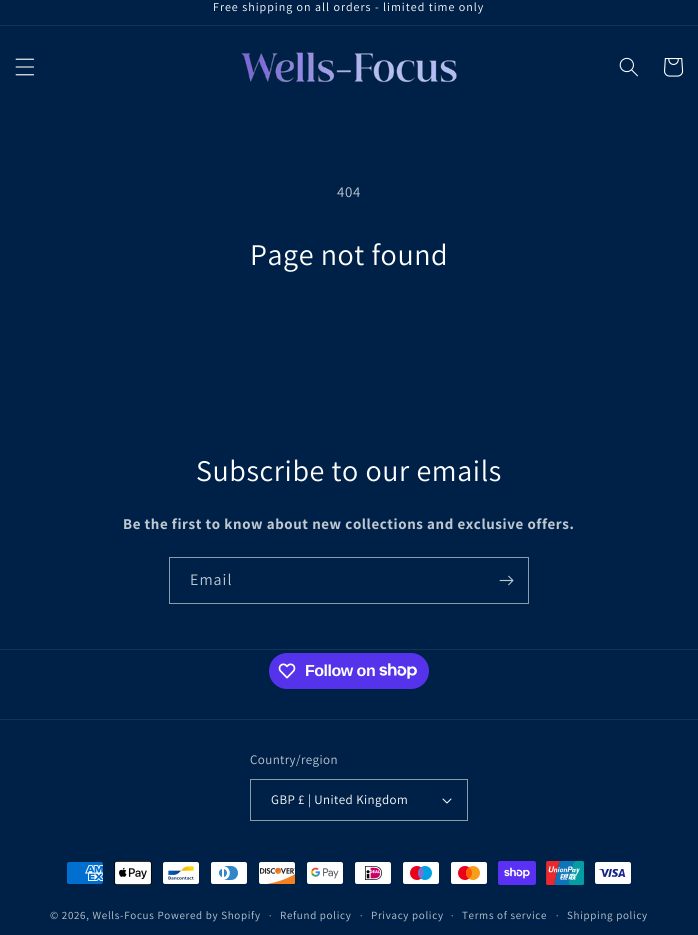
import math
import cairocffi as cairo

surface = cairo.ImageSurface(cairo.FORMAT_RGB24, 698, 935)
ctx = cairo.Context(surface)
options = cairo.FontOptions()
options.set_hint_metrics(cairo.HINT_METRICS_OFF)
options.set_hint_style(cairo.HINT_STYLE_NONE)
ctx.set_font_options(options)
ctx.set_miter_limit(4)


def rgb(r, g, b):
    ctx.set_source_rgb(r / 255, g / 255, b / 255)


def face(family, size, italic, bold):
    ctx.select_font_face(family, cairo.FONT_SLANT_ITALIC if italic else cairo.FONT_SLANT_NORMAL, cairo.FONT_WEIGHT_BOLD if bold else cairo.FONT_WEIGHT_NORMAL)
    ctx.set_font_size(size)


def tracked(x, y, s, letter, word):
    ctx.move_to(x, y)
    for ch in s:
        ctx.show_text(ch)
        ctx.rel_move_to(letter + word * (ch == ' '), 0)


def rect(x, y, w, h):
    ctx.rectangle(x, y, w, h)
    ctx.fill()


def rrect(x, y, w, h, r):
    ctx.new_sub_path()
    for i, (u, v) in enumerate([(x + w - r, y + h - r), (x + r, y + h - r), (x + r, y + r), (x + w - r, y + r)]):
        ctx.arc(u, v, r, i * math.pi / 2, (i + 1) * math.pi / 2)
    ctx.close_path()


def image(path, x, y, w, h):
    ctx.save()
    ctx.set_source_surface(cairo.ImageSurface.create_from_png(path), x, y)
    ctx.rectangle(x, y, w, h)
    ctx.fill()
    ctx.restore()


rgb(0, 33, 71)
ctx.paint()
rgb(20, 51, 86)
rect(0, 25, 698, 1)
face('Assistant', 12, 0, 0)
rgb(255, 255, 255)
tracked(213, 11, 'Free shipping on all orders - limited time only', 1, 0)
image('image0.png', 15, 58, 20, 18)
image('image1.png', 241, 52, 216, 31)
image('image2.png', 619, 57, 19, 20)
image('image3.png', 664, 58, 20, 19)
face('Assistant', 15, 0, 0)
rgb(191, 200, 209)
tracked(337, 197, '404', 0.6, 0)
face('Assistant', 30, 0, 0)
rgb(255, 255, 255)
tracked(250, 265, 'Page not found', 0.6, 0)
tracked(196, 481, 'Subscribe to our emails', 0.6, 0)
face('Assistant', 15, 0, 1)
rgb(191, 200, 209)
tracked(123, 529, 'Be the first to know about new collections and exclusive offers.', 0.6, 0)
ctx.rectangle(169.5, 557.5, 359, 46)
rgb(140, 155, 172)
ctx.set_line_width(1)
ctx.stroke()
face('Assistant', 16, 0, 0)
rgb(191, 200, 209)
tracked(190, 585, 'Email', 1, 0)
image('image4.png', 499, 575, 15, 11)
rgb(20, 51, 86)
rect(0, 649, 698, 1)
rgb(84, 51, 235)
rrect(269, 653, 160, 36, 18)
ctx.fill()
image('image5.png', 278, 663, 18, 16)
face('Liberation Sans', 16, 0, 1)
rgb(255, 255, 255)
tracked(305, 676, 'Follow on', -0.5, 0)
image('image6.png', 379, 663, 38, 16)
rgb(20, 51, 86)
rect(0, 719, 698, 1)
face('Assistant', 13, 0, 0)
rgb(191, 200, 209)
tracked(250, 764, 'Country/region', 0.4, 0)
image('image7.png', 442, 798, 10, 6)
ctx.rectangle(250.5, 779.5, 217, 41)
rgb(140, 155, 172)
ctx.stroke()
rgb(255, 255, 255)
tracked(271, 804, 'GBP £ | United Kingdom', 0.4, 0)
image('image8.png', 66, 861, 38, 24)
image('image9.png', 114, 861, 38, 24)
image('image10.png', 162, 861, 38, 24)
image('image11.png', 210, 861, 38, 24)
image('image12.png', 258, 861, 38, 24)
image('image13.png', 306, 861, 38, 24)
image('image14.png', 354, 861, 38, 24)
image('image15.png', 402, 861, 38, 24)
image('image16.png', 450, 861, 38, 24)
image('image17.png', 498, 861, 38, 24)
image('image18.png', 546, 861, 38, 24)
image('image19.png', 594, 861, 38, 24)
face('Assistant', 11, 0, 0)
rgb(191, 200, 209)
tracked(50, 919, '© 2026, Wells-Focus Powered by Shopify', 0.7, 0)
face('Assistant', 10, 0, 0)
tracked(269, 919, '·', 0.7, 0)
face('Assistant', 11, 0, 0)
tracked(280, 919, 'Refund policy', 0.7, 0)
face('Assistant', 10, 0, 0)
tracked(360, 919, '·', 0.7, 0)
face('Assistant', 11, 0, 0)
tracked(371, 919, 'Privacy policy', 0.7, 0)
face('Assistant', 10, 0, 0)
tracked(451, 919, '·', 0.7, 0)
face('Assistant', 11, 0, 0)
tracked(462, 919, 'Terms of service', 0.7, 0)
face('Assistant', 10, 0, 0)
tracked(556, 919, '·', 0.7, 0)
face('Assistant', 11, 0, 0)
tracked(567, 919, 'Shipping policy', 0.7, 0)
surface.write_to_png('render.png')
